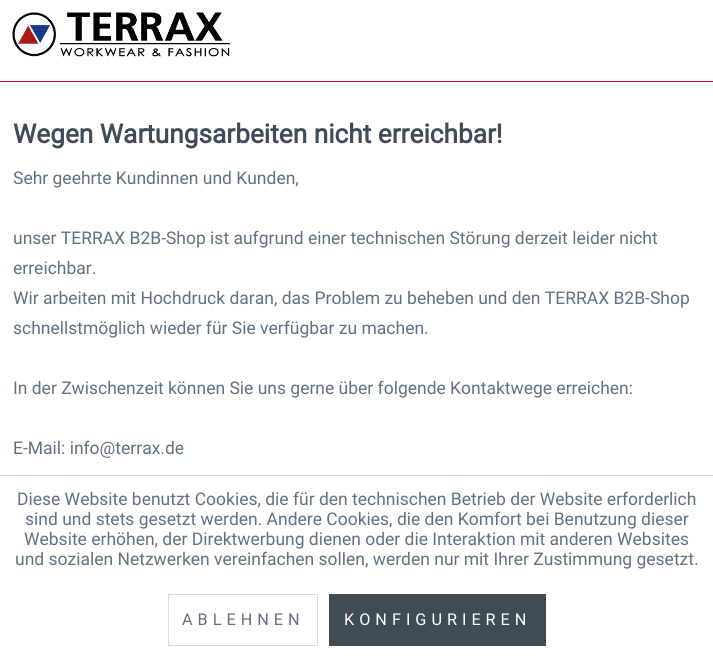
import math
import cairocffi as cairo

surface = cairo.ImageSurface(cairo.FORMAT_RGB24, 713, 658)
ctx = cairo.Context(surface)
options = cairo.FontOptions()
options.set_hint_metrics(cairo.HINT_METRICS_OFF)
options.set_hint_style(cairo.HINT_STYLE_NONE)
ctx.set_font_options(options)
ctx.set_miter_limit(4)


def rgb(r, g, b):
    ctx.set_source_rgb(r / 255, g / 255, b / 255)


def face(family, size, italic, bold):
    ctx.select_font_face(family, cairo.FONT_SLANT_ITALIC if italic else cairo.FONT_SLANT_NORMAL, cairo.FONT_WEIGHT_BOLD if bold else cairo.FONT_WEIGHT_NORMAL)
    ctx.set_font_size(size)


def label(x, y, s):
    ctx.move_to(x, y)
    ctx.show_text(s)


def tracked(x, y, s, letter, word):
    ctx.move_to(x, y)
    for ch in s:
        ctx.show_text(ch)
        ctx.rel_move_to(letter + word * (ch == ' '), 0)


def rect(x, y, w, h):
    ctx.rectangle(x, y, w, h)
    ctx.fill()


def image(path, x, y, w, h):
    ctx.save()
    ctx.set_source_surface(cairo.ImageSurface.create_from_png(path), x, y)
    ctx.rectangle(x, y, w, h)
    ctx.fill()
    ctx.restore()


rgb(255, 255, 255)
ctx.paint()
rgb(170, 25, 23)
rect(0, 81, 713, 1)
image('image0.png', 12, 12, 218, 45)
face('Roboto', 26.25, 0, 1)
rgb(63, 76, 88)
label(13, 143, 'Wegen Wartungsarbeiten nicht erreichbar!')
face('Roboto', 17.5, 0, 0)
rgb(95, 114, 133)
label(13, 184, 'Sehr geehrte Kundinnen und Kunden,')
label(13, 244, 'unser TERRAX B2B-Shop ist aufgrund einer technischen Störung derzeit leider nicht')
label(13, 274, 'erreichbar.')
label(13, 304, 'Wir arbeiten mit Hochdruck daran, das Problem zu beheben und den TERRAX B2B-Shop')
label(13, 334, 'schnellstmöglich wieder für Sie verfügbar zu machen.')
label(13, 394, 'In der Zwischenzeit können Sie uns gerne über folgende Kontaktwege erreichen:')
label(13, 454, 'E-Mail: info@terrax.de')
rgb(218, 218, 229)
rect(0, 475, 713, 1)
rgb(95, 114, 133)
label(17, 505, 'Diese Website benutzt Cookies, die für den technischen Betrieb der Website erforderlich')
label(25, 525, 'sind und stets gesetzt werden. Andere Cookies, die den Komfort bei Benutzung dieser')
label(24, 545, 'Website erhöhen, der Direktwerbung dienen oder die Interaktion mit anderen Websites')
label(15, 565, 'und sozialen Netzwerken vereinfachen sollen, werden nur mit Ihrer Zustimmung gesetzt.')
ctx.rectangle(168.5, 594.5, 149, 51)
rgb(218, 218, 229)
ctx.set_line_width(1)
ctx.stroke()
face('Roboto', 16.25, 0, 0)
rgb(95, 114, 133)
tracked(182, 625, 'ABLEHNEN', 5, 0)
rgb(63, 76, 83)
rect(329, 594, 217, 52)
rgb(255, 255, 255)
tracked(344, 625, 'KONFIGURIEREN', 5, 0)
surface.write_to_png('render.png')
